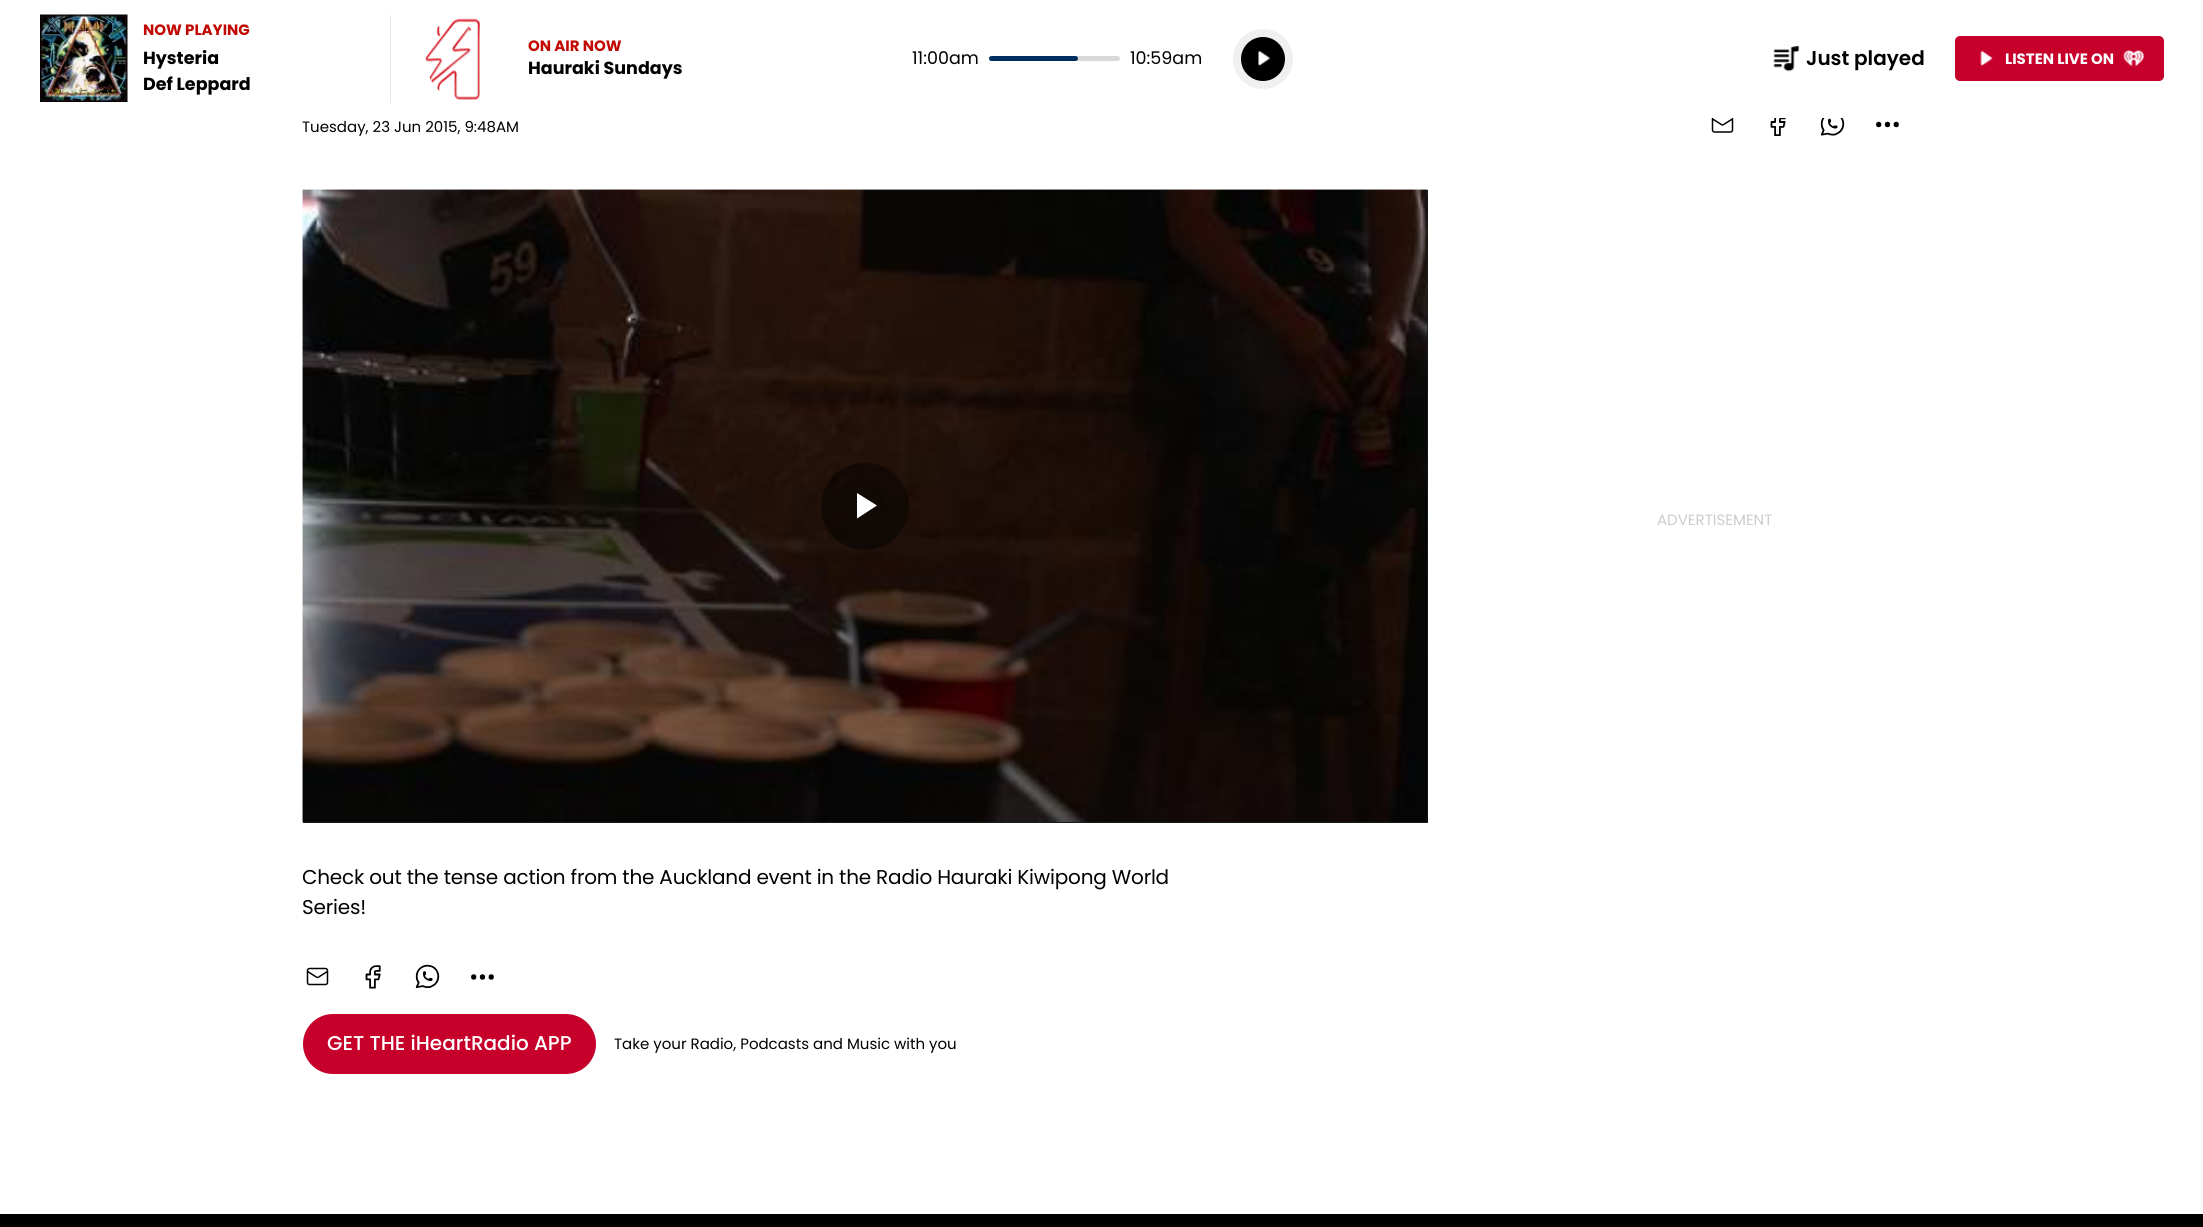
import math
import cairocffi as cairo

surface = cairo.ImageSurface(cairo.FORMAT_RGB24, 2203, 1227)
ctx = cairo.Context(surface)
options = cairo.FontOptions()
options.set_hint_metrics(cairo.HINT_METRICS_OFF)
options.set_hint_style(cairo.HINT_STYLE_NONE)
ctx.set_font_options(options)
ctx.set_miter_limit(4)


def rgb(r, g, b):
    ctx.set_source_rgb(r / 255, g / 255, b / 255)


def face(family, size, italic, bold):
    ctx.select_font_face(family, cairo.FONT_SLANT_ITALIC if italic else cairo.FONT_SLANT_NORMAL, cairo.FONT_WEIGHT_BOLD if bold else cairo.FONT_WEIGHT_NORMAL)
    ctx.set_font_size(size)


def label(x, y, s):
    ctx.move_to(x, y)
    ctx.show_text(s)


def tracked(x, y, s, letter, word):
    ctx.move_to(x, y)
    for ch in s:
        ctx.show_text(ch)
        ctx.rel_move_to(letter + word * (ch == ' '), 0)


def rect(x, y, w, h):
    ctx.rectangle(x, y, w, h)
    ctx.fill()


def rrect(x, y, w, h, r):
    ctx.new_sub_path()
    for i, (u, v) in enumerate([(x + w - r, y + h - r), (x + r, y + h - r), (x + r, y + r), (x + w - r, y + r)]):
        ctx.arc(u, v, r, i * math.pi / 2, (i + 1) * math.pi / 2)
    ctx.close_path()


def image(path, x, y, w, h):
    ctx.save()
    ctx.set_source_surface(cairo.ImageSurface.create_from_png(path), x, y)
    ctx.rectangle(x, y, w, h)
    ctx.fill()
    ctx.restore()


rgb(255, 255, 255)
ctx.paint()
image('image0.png', 40, 14, 88, 88)
face('Poppins', 15, 0, 1)
rgb(193, 7, 1)
label(143, 35, 'NOW PLAYING')
face('Poppins', 17.5, 0, 1)
rgb(0, 0, 0)
label(143, 64, 'Hysteria')
label(143, 90, 'Def Leppard')
rgb(230, 229, 229)
rect(390, 15, 1, 88)
image('image1.png', 425, 18, 55, 82)
face('Poppins', 15, 0, 1)
rgb(193, 7, 1)
label(528, 51, 'ON AIR NOW')
face('Poppins', 17.5, 0, 1)
rgb(0, 0, 0)
label(528, 74, 'Hauraki Sundays')
face('Poppins', 17.5, 0, 0)
label(912, 64, '11:00am')
rgb(217, 217, 217)
rrect(989, 56, 131, 5, 2.5)
ctx.fill()
rgb(0, 47, 97)
rrect(989, 56, 89, 5, 2.5)
ctx.fill()
rgb(0, 0, 0)
label(1130, 64, '10:59am')
ctx.new_path()
ctx.arc(1263, 59, 26, 0, 2 * math.pi)
ctx.fill_preserve()
rgb(240, 240, 240)
ctx.set_line_width(8)
ctx.stroke()
image('image2.png', 1258, 51, 12, 15)
image('image3.png', 1773, 45, 27, 27)
face('Poppins SemiBold', 20, 0, 0)
rgb(0, 0, 0)
label(1806, 65, 'Just played')
rgb(199, 0, 43)
rrect(1955, 36, 209, 45, 5)
ctx.fill()
image('image4.png', 1980, 51, 13, 15)
face('Poppins', 15, 0, 1)
rgb(255, 255, 255)
label(2005, 64, 'LISTEN LIVE ON')
image('image5.png', 2123, 50, 21, 17)
face('Poppins', 15, 0, 0)
rgb(0, 0, 0)
label(302, 132, 'Tuesday, 23 Jun 2015, 9:48AM')
image('image6.png', 1711, 118, 23, 15)
image('image7.png', 1770, 118, 16, 18)
image('image8.png', 1820, 118, 25, 18)
image('image9.png', 1876, 121, 23, 7)
rgb(204, 204, 204)
label(1657, 525, 'ADVERTISEMENT')
image('image10.png', 302, 189, 1126, 633)
rgb(21, 27, 23)
rect(303, 190, 1125, 633)
image('image11.png', 302, 189, 1126, 633)
ctx.set_source_rgba(0, 0, 0, 0.45)
rrect(821, 463, 88, 87, 43.5)
ctx.fill()
rgb(255, 255, 255)
ctx.new_path()
ctx.move_to(857, 493)
ctx.line_to(857, 518.5)
ctx.line_to(877, 505.5)
ctx.close_path()
ctx.fill()
face('Poppins', 20, 0, 0)
rgb(0, 0, 0)
tracked(302, 884, 'Check out the tense action from the Auckland event in the Radio Hauraki Kiwipong World', -0.2, 0)
tracked(302, 914, 'Series!', -0.2, 0)
image('image12.png', 306, 967, 23, 19)
image('image13.png', 365, 965, 16, 24)
image('image14.png', 415, 964, 25, 24)
image('image15.png', 471, 974, 23, 6)
rgb(199, 0, 43)
rrect(303, 1014, 293, 60, 30)
ctx.fill()
face('Poppins Medium', 20, 0, 0)
rgb(255, 255, 255)
label(327, 1050, 'GET THE iHeartRadio APP')
face('Poppins', 15, 0, 0)
rgb(0, 0, 0)
label(614, 1049, 'Take your Radio, Podcasts and Music with you')
rect(0, 1214, 2203, 13)
surface.write_to_png('render.png')
